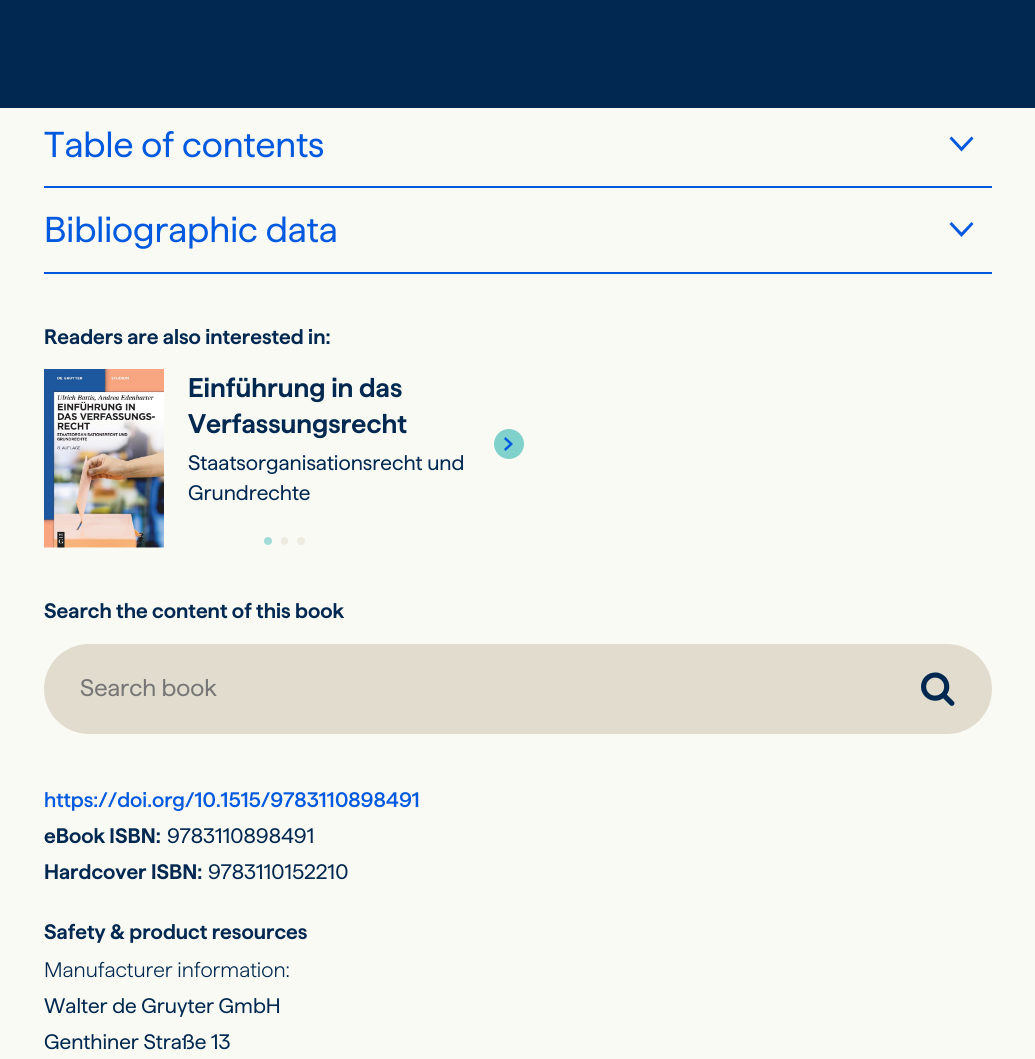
import math
import cairocffi as cairo

surface = cairo.ImageSurface(cairo.FORMAT_RGB24, 1035, 1059)
ctx = cairo.Context(surface)
options = cairo.FontOptions()
options.set_hint_metrics(cairo.HINT_METRICS_OFF)
options.set_hint_style(cairo.HINT_STYLE_NONE)
ctx.set_font_options(options)
ctx.set_miter_limit(4)


def rgb(r, g, b):
    ctx.set_source_rgb(r / 255, g / 255, b / 255)


def face(family, size, italic, bold):
    ctx.select_font_face(family, cairo.FONT_SLANT_ITALIC if italic else cairo.FONT_SLANT_NORMAL, cairo.FONT_WEIGHT_BOLD if bold else cairo.FONT_WEIGHT_NORMAL)
    ctx.set_font_size(size)


def label(x, y, s):
    ctx.move_to(x, y)
    ctx.show_text(s)


def rect(x, y, w, h):
    ctx.rectangle(x, y, w, h)
    ctx.fill()


def rrect(x, y, w, h, r):
    ctx.new_sub_path()
    for i, (u, v) in enumerate([(x + w - r, y + h - r), (x + r, y + h - r), (x + r, y + r), (x + w - r, y + r)]):
        ctx.arc(u, v, r, i * math.pi / 2, (i + 1) * math.pi / 2)
    ctx.close_path()


def image(path, x, y, w, h):
    ctx.save()
    ctx.set_source_surface(cairo.ImageSurface.create_from_png(path), x, y)
    ctx.rectangle(x, y, w, h)
    ctx.fill()
    ctx.restore()


rgb(250, 250, 245)
ctx.paint()
rgb(0, 40, 80)
rect(0, 0, 1035, 108)
rgb(0, 89, 222)
rect(44, 186, 948, 2)
face('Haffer', 36, 1, 0)
label(44, 157, 'Table of contents')
ctx.set_fill_rule(cairo.FILL_RULE_EVEN_ODD)
ctx.new_path()
ctx.move_to(971.5, 136.5)
ctx.line_to(973.5, 138.5)
ctx.line_to(961.5, 151.5)
ctx.line_to(949.5, 138.5)
ctx.line_to(951.5, 136.5)
ctx.line_to(961.5, 147)
ctx.close_path()
ctx.fill()
rect(44, 272, 948, 2)
label(44, 242, 'Bibliographic data')
ctx.new_path()
ctx.move_to(971.5, 222)
ctx.line_to(973.5, 224)
ctx.line_to(961.5, 237)
ctx.line_to(949.5, 224)
ctx.line_to(951.5, 222)
ctx.line_to(961.5, 232.5)
ctx.close_path()
ctx.fill()
face('Haffer', 21, 1, 1)
rgb(0, 40, 80)
label(44, 344, 'Readers are also interested in:')
image('image0.png', 44, 369, 120, 179)
face('Haffer', 27, 1, 1)
label(188, 397, 'Einführung in das')
label(188, 433, 'Verfassungsrecht')
face('Haffer', 21, 1, 0)
label(188, 470, 'Staatsorganisationsrecht und')
label(188, 500, 'Grundrechte')
rgb(128, 209, 203)
ctx.new_path()
ctx.arc(509, 444, 15, 0, 2 * math.pi)
ctx.fill()
rgb(0, 89, 222)
ctx.new_path()
ctx.move_to(504, 439)
ctx.line_to(505.5, 437)
ctx.line_to(513, 444)
ctx.line_to(505.5, 451)
ctx.line_to(504, 449)
ctx.line_to(509.5, 444)
ctx.close_path()
ctx.fill()
rgb(161, 220, 216)
ctx.arc(268, 541, 4, 0, 2 * math.pi)
ctx.fill()
rgb(238, 235, 225)
rrect(281, 537, 7, 8, 3.5)
ctx.fill()
ctx.arc(301, 541, 4, 0, 2 * math.pi)
ctx.fill()
face('Haffer', 21, 1, 1)
rgb(0, 40, 80)
label(44, 618, 'Search the content of this book')
rgb(225, 220, 205)
ctx.new_path()
ctx.move_to(89, 644)
ctx.line_to(884, 644)
ctx.line_to(884, 734)
ctx.line_to(89, 734)
ctx.curve_to(64, 734, 44, 714, 44, 689)
ctx.curve_to(44, 664, 64, 644, 89, 644)
ctx.close_path()
ctx.fill()
face('Haffer', 24, 1, 0)
rgb(117, 117, 117)
label(80, 696, 'Search book')
rgb(225, 220, 205)
ctx.new_path()
ctx.move_to(884, 644)
ctx.line_to(947, 644)
ctx.curve_to(972, 644, 992, 664, 992, 689)
ctx.curve_to(992, 714, 972, 734, 947, 734)
ctx.line_to(884, 734)
ctx.close_path()
ctx.fill()
image('image1.png', 921, 672, 34, 34)
face('Haffer SemiBold', 21, 1, 0)
rgb(0, 89, 222)
label(44, 807, 'https://doi.org/10.1515/9783110898491')
face('Haffer', 21, 1, 1)
rgb(0, 40, 80)
label(44, 843, 'eBook ISBN:')
face('Haffer', 21, 1, 0)
label(167, 843, '9783110898491')
face('Haffer', 21, 1, 1)
label(44, 879, 'Hardcover ISBN:')
face('Haffer', 21, 1, 0)
label(208, 879, '9783110152210')
face('Haffer', 21, 1, 1)
label(44, 939, 'Safety & product resources')
face('Haffer Light', 21, 1, 0)
label(44, 977, 'Manufacturer information:')
face('Haffer', 21, 1, 0)
label(44, 1013, 'Walter de Gruyter GmbH')
label(44, 1049, 'Genthiner Straße 13')
surface.write_to_png('render.png')
